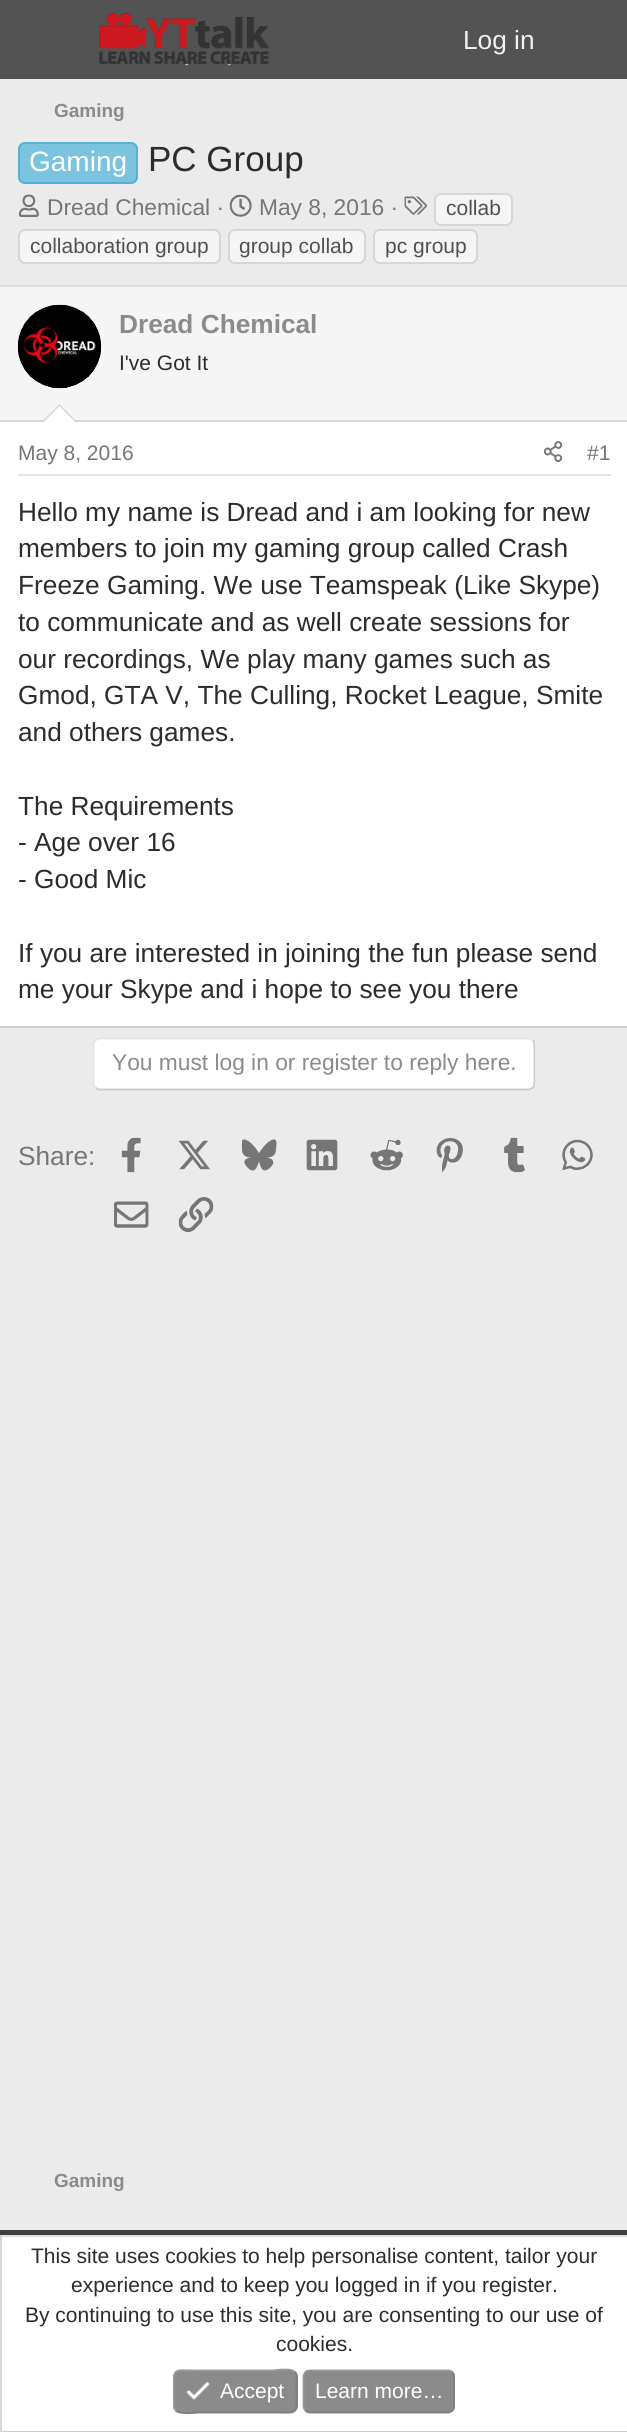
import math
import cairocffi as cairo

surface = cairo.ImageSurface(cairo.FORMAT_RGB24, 627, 2432)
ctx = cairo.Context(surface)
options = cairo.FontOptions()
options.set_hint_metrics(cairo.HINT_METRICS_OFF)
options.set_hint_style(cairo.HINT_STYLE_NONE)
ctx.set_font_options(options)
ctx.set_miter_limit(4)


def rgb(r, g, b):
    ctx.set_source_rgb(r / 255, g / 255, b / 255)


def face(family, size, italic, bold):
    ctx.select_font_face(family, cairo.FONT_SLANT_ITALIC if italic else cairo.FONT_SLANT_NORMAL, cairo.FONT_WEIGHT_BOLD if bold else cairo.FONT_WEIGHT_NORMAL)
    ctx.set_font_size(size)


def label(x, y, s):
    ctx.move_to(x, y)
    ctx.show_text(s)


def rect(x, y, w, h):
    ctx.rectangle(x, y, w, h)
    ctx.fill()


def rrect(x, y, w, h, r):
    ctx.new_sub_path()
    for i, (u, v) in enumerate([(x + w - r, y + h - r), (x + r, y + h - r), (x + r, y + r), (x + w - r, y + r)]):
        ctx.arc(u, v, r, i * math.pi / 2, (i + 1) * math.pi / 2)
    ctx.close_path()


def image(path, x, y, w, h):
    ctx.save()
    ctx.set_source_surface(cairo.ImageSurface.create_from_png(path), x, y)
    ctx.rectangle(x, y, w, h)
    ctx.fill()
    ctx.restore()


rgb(235, 235, 235)
ctx.paint()
rgb(83, 83, 83)
rect(0, 0, 627, 79)
image('image0.png', 99, 13, 170, 53)
face('Liberation Sans', 26.25, 0, 0)
rgb(240, 240, 240)
label(463, 49, 'Log in')
face('Liberation Sans', 19, 0, 1)
rgb(139, 139, 139)
label(54, 117, 'Gaming')
rgb(124, 195, 224)
rrect(19, 143, 118, 40, 6)
ctx.fill_preserve()
rgb(83, 176, 214)
ctx.stroke()
face('Liberation Sans', 28, 0, 0)
rgb(255, 255, 255)
label(29, 171, 'Gaming')
face('Liberation Sans', 35, 0, 0)
rgb(44, 44, 44)
label(148, 171, 'PC Group')
image('image1.png', 18, 194, 21, 23)
face('Liberation Sans', 22.75, 0, 0)
rgb(118, 118, 118)
label(47, 215, 'Dread Chemical ·')
image('image2.png', 404, 196, 23, 19)
rgb(245, 245, 245)
rrect(435, 194, 77, 31, 6)
ctx.fill_preserve()
rgb(214, 214, 214)
ctx.stroke()
face('Liberation Sans', 21, 0, 0)
rgb(81, 81, 81)
label(446, 215, 'collab')
rgb(245, 245, 245)
rrect(19, 230, 201, 33, 6)
ctx.fill_preserve()
rgb(214, 214, 214)
ctx.stroke()
rgb(81, 81, 81)
label(30, 253, 'collaboration group')
rgb(245, 245, 245)
rrect(229, 230, 136, 33, 6)
ctx.fill_preserve()
rgb(214, 214, 214)
ctx.stroke()
rgb(81, 81, 81)
label(239, 253, 'group collab')
rgb(245, 245, 245)
rrect(374, 230, 103, 33, 6)
ctx.fill_preserve()
rgb(214, 214, 214)
ctx.stroke()
rgb(81, 81, 81)
label(385, 253, 'pc group')
image('image3.png', 229, 194, 23, 23)
face('Liberation Sans', 22.75, 0, 0)
rgb(118, 118, 118)
label(259, 215, 'May 8, 2016 ·')
rgb(255, 255, 255)
rect(0, 422, 627, 604)
rgb(224, 224, 224)
rect(0, 285, 627, 2)
rgb(204, 204, 204)
rect(0, 1026, 627, 2)
rgb(245, 245, 245)
rect(0, 287, 627, 133)
rgb(214, 214, 214)
rect(0, 420, 627, 2)
rgb(255, 255, 255)
ctx.new_path()
ctx.arc(60, 347, 42, 0, 2 * math.pi)
ctx.fill()
image('image4.png', 17, 304, 85, 85)
face('Liberation Sans', 26.25, 0, 1)
rgb(139, 139, 139)
label(119, 333, 'Dread Chemical')
face('Liberation Sans', 21, 0, 0)
rgb(44, 44, 44)
label(119, 370, 'I\'ve Got It')
rgb(214, 214, 214)
ctx.new_path()
ctx.move_to(77, 422)
ctx.line_to(42, 422)
ctx.line_to(59.5, 404)
ctx.close_path()
ctx.fill()
rgb(255, 255, 255)
ctx.new_path()
ctx.move_to(75, 422)
ctx.line_to(44, 422)
ctx.line_to(59.5, 406)
ctx.close_path()
ctx.fill()
rgb(229, 229, 229)
rect(18, 474, 593, 2)
rgb(118, 118, 118)
label(18, 460, 'May 8, 2016')
image('image5.png', 543, 441, 20, 21)
label(587, 460, '#1')
face('Liberation Sans', 26.25, 0, 0)
rgb(44, 44, 44)
label(18, 521, 'Hello my name is Dread and i am looking for new')
label(18, 557, 'members to join my gaming group called Crash')
label(18, 594, 'Freeze Gaming. We use Teamspeak (Like Skype)')
label(18, 631, 'to communicate and as well create sessions for')
label(18, 668, 'our recordings, We play many games such as')
label(18, 704, 'Gmod, GTA V, The Culling, Rocket League, Smite')
label(18, 741, 'and others games.')
label(18, 815, 'The Requirements')
label(18, 851, '- Age over 16')
label(18, 888, '- Good Mic')
label(18, 962, 'If you are interested in joining the fun please send')
label(18, 998, 'me your Skype and i hope to see you there')
rgb(255, 255, 255)
rrect(93, 1038, 443, 52, 7)
ctx.fill()
ctx.new_path()
ctx.move_to(533, 1040.5)
ctx.curve_to(534, 1041.5, 534.5, 1043, 534.5, 1045)
ctx.line_to(534.5, 1083)
ctx.curve_to(534.5, 1085, 534, 1086.5, 533, 1087.5)
ctx.curve_to(531.5, 1088.5, 530, 1089.5, 528.5, 1089.5)
ctx.line_to(100, 1089.5)
ctx.curve_to(98, 1089.5, 96.5, 1088.5, 95.5, 1087.5)
rgb(201, 201, 201)
ctx.set_line_width(1.8)
ctx.stroke()
ctx.new_path()
ctx.move_to(95.5, 1087.5)
ctx.curve_to(94.5, 1086.5, 93.5, 1085, 93.5, 1083)
ctx.line_to(93.5, 1045)
ctx.curve_to(93.5, 1043, 94.5, 1041.5, 95.5, 1040.5)
ctx.curve_to(96.5, 1039.5, 98, 1038.5, 100, 1038.5)
ctx.line_to(528.5, 1038.5)
ctx.curve_to(530, 1038.5, 531.5, 1039.5, 533, 1040.5)
rgb(227, 227, 227)
ctx.stroke()
face('Liberation Sans', 22.75, 0, 0)
rgb(139, 139, 139)
label(112, 1070, 'You must log in or register to reply here.')
face('Liberation Sans', 26.25, 0, 0)
rgb(118, 118, 118)
label(18, 1165, 'Share:')
image('image6.png', 121, 1137, 20, 36)
image('image7.png', 178, 1140, 32, 30)
image('image8.png', 242, 1139, 35, 32)
image('image9.png', 306, 1139, 32, 32)
image('image10.png', 370, 1139, 33, 32)
image('image11.png', 436, 1138, 27, 34)
image('image12.png', 504, 1137, 21, 36)
image('image13.png', 562, 1139, 31, 32)
image('image14.png', 114, 1201, 35, 27)
image('image15.png', 178, 1197, 36, 35)
face('Liberation Sans', 19, 0, 1)
rgb(139, 139, 139)
label(54, 2187, 'Gaming')
rgb(63, 63, 63)
rect(0, 2230, 627, 5)
rgb(255, 255, 255)
rect(2, 2237, 625, 194)
rgb(224, 224, 224)
rect(0, 2235, 627, 2)
rgb(204, 204, 204)
rect(0, 2431, 627, 1)
rgb(214, 214, 214)
rect(0, 2235, 2, 197)
face('Liberation Sans', 21, 0, 0)
rgb(44, 44, 44)
label(31, 2263, 'This site uses cookies to help personalise content, tailor your')
label(71, 2292, 'experience and to keep you logged in if you register.')
label(25, 2322, 'By continuing to use this site, you are consenting to our use of')
label(276, 2351, 'cookies.')
rgb(139, 139, 139)
rrect(173, 2370, 125, 43, 7)
ctx.fill()
ctx.new_path()
ctx.move_to(295, 2372)
ctx.curve_to(297.5, 2374.5, 296.5, 2378.5, 296.5, 2381.5)
ctx.line_to(296.5, 2391.5)
ctx.curve_to(296.5, 2416, 298.5, 2412.5, 272, 2412.5)
ctx.line_to(198.5, 2412.5)
ctx.curve_to(197, 2412.5, 180.5, 2415, 176, 2410.5)
rgb(126, 126, 126)
ctx.stroke()
ctx.new_path()
ctx.move_to(176, 2410.5)
ctx.curve_to(173.5, 2408, 174, 2404.5, 174, 2401.5)
ctx.line_to(174, 2391.5)
ctx.curve_to(174, 2366.5, 172, 2370.5, 198.5, 2370.5)
ctx.line_to(272, 2370.5)
ctx.curve_to(274, 2370.5, 290.5, 2367.5, 295, 2372)
rgb(152, 152, 152)
ctx.stroke()
image('image16.png', 186, 2382, 24, 18)
rgb(255, 255, 255)
label(220, 2398, 'Accept')
rgb(139, 139, 139)
rrect(303, 2370, 152, 43, 7)
ctx.fill()
ctx.new_path()
ctx.move_to(452.5, 2372)
ctx.curve_to(453.5, 2373.5, 454, 2375, 454, 2376.5)
ctx.line_to(454, 2406)
ctx.curve_to(454, 2408, 453.5, 2409.5, 452.5, 2410.5)
ctx.curve_to(451, 2411.5, 449.5, 2412.5, 448, 2412.5)
ctx.line_to(310, 2412.5)
ctx.curve_to(308, 2412.5, 306.5, 2411.5, 305.5, 2410.5)
rgb(126, 126, 126)
ctx.stroke()
ctx.new_path()
ctx.move_to(305.5, 2410.5)
ctx.curve_to(304.5, 2409.5, 303.5, 2408, 303.5, 2406)
ctx.line_to(303.5, 2376.5)
ctx.curve_to(303.5, 2375, 304.5, 2373.5, 305.5, 2372)
ctx.curve_to(306.5, 2371, 308, 2370.5, 310, 2370.5)
ctx.line_to(448, 2370.5)
ctx.curve_to(449.5, 2370.5, 451, 2371, 452.5, 2372)
rgb(152, 152, 152)
ctx.stroke()
rgb(255, 255, 255)
label(315, 2398, 'Learn more…')
surface.write_to_png('render.png')
